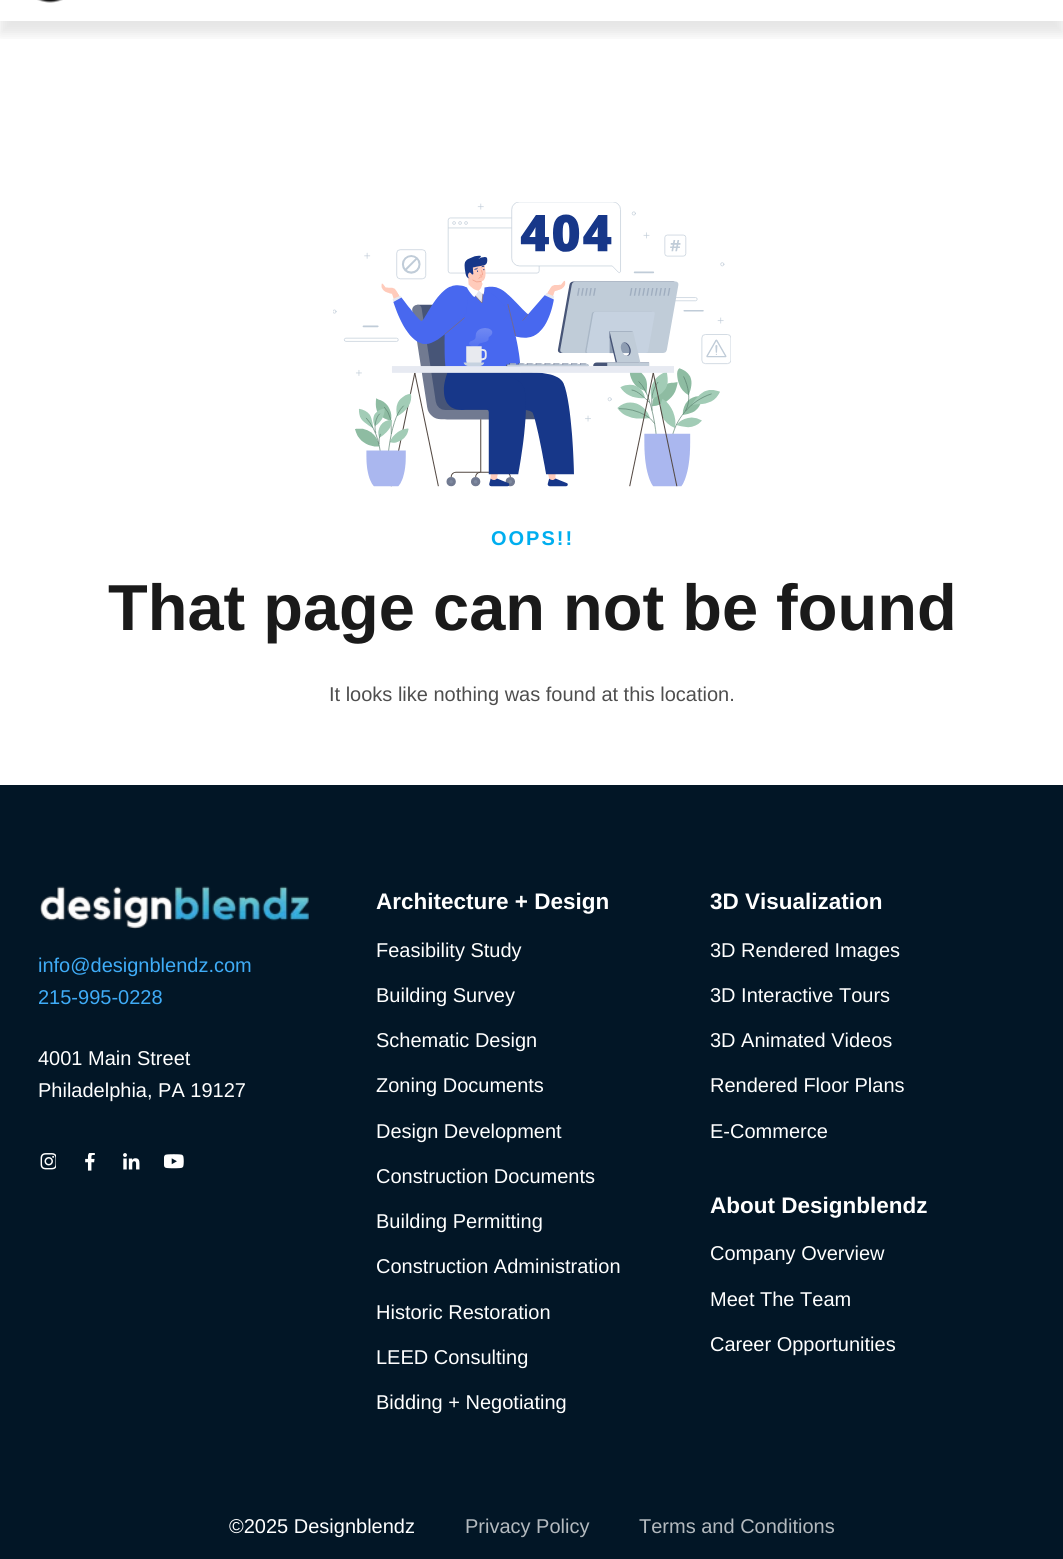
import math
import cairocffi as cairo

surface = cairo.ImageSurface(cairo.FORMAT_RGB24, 1063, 1559)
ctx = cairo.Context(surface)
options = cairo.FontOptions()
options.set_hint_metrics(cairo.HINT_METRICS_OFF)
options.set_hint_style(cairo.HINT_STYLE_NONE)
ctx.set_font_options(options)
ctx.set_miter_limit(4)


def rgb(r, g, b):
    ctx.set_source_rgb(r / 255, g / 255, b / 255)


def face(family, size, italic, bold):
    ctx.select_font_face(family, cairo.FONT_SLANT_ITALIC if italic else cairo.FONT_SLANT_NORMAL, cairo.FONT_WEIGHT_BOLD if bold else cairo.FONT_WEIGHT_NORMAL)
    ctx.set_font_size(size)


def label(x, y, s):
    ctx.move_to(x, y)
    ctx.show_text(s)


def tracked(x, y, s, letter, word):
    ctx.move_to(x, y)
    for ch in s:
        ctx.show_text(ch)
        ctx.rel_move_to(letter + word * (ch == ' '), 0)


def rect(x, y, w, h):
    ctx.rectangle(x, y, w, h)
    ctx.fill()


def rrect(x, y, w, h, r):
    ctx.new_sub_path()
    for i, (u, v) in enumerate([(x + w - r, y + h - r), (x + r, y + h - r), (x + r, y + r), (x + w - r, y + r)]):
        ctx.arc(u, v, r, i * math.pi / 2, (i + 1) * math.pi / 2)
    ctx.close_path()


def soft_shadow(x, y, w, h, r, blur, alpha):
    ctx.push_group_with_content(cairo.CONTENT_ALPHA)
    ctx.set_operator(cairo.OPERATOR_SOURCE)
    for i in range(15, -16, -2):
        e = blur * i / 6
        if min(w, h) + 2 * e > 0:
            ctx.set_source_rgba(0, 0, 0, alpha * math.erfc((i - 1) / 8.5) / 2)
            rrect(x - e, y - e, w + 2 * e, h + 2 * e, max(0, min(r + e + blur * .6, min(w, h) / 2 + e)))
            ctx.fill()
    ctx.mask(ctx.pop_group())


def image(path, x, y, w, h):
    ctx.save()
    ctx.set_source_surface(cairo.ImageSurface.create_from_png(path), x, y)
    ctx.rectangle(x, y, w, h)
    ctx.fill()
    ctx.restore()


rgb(255, 255, 255)
ctx.paint()
ctx.save()
ctx.rectangle(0, 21, 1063, 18)
ctx.clip()
rgb(0, 0, 0)
soft_shadow(0, -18, 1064, 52, 0, 6, 0.1)
ctx.restore()
image('image0.png', 37, 0, 26, 3)
image('image1.png', 333, 202, 398, 285)
face('Liberation Sans', 20, 0, 1)
rgb(0, 174, 239)
tracked(491, 545, 'OOPS!!', 2, 0)
face('Liberation Sans', 65, 0, 1)
rgb(26, 26, 26)
label(108, 630, 'That page can not be found')
face('Liberation Sans', 20, 0, 0)
rgb(78, 78, 78)
label(329, 701, 'It looks like nothing was found at this location.')
rgb(2, 22, 38)
rect(0, 785, 1063, 774)
image('image2.png', 40, 886, 269, 43)
rgb(63, 172, 247)
label(38, 972, 'info@designblendz.com')
label(38, 1004, '215-995-0228')
rgb(255, 255, 255)
label(38, 1065, '4001 Main Street')
label(38, 1097, 'Philadelphia, PA 19127')
image('image3.png', 40, 1153, 16, 17)
image('image4.png', 85, 1153, 10, 18)
image('image5.png', 123, 1153, 17, 17)
image('image6.png', 164, 1154, 20, 15)
face('Liberation Sans', 22.5, 0, 1)
label(376, 909, 'Architecture + Design')
face('Liberation Sans', 20, 0, 0)
label(376, 957, 'Feasibility Study')
label(376, 1002, 'Building Survey')
label(376, 1047, 'Schematic Design')
label(376, 1092, 'Zoning Documents')
label(376, 1138, 'Design Development')
label(376, 1183, 'Construction Documents')
label(376, 1228, 'Building Permitting')
label(376, 1273, 'Construction Administration')
label(376, 1319, 'Historic Restoration')
label(376, 1364, 'LEED Consulting')
label(376, 1409, 'Bidding + Negotiating')
face('Liberation Sans', 22.5, 0, 1)
label(710, 909, '3D Visualization')
face('Liberation Sans', 20, 0, 0)
label(710, 957, '3D Rendered Images')
label(710, 1002, '3D Interactive Tours')
label(710, 1047, '3D Animated Videos')
label(710, 1092, 'Rendered Floor Plans')
label(710, 1138, 'E-Commerce')
face('Liberation Sans', 22.5, 0, 1)
label(710, 1213, 'About Designblendz')
face('Liberation Sans', 20, 0, 0)
label(710, 1260, 'Company Overview')
label(710, 1306, 'Meet The Team')
label(710, 1351, 'Career Opportunities')
label(229, 1533, '©2025 Designblendz')
rgb(179, 185, 190)
label(465, 1533, 'Privacy Policy')
label(639, 1533, 'Terms and Conditions')
surface.write_to_png('render.png')
